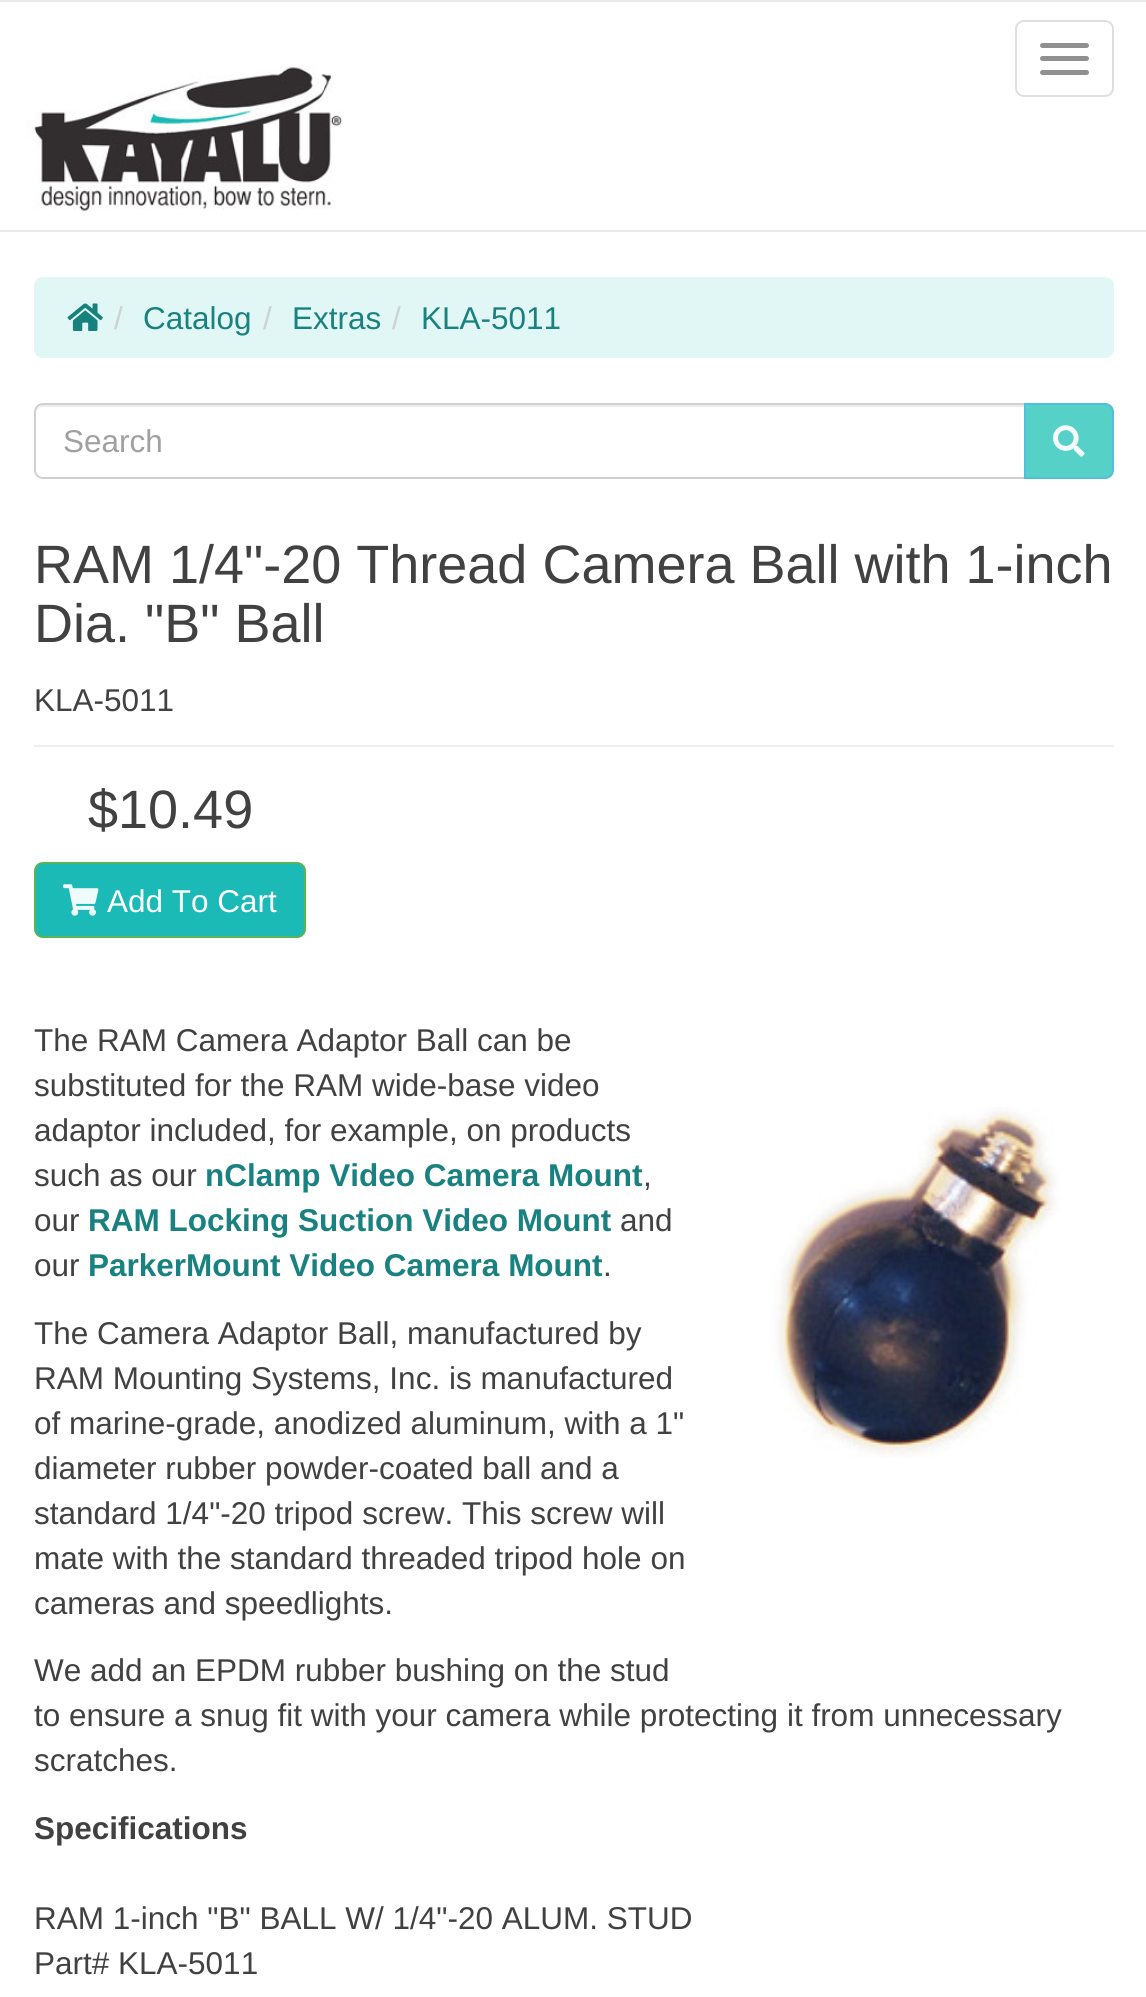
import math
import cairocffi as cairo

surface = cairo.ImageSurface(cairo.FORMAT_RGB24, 1146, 1997)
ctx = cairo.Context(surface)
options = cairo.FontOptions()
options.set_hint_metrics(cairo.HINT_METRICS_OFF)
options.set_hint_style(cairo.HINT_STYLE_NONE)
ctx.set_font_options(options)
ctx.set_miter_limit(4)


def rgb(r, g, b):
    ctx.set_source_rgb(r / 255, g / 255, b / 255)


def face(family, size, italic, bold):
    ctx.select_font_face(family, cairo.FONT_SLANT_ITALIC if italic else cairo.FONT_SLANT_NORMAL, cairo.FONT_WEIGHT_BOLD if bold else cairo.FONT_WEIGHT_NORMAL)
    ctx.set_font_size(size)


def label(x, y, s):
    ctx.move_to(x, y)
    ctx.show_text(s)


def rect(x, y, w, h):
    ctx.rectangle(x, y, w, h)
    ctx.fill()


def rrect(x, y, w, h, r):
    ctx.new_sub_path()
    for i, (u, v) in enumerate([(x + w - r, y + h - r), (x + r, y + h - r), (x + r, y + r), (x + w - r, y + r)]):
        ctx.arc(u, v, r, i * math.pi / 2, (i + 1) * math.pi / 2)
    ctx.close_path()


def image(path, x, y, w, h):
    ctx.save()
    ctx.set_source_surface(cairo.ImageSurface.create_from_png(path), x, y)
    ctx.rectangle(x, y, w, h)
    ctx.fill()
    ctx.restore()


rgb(255, 255, 255)
ctx.paint()
rgb(233, 233, 233)
rect(0, 0, 1146, 2)
rect(0, 230, 1146, 2)
image('image0.png', 27, 66, 315, 151)
rrect(1016, 21, 97, 75, 8)
rgb(223, 223, 223)
ctx.stroke()
rgb(144, 144, 144)
rrect(1040, 43, 49, 5, 2.5)
ctx.fill()
rrect(1040, 56, 49, 5, 2.5)
ctx.fill()
rrect(1040, 70, 49, 5, 2.5)
ctx.fill()
rgb(225, 247, 245)
rrect(34, 277, 1080, 81, 9)
ctx.fill()
image('image1.png', 67, 303, 36, 28)
face('Liberation Sans', 31.5, 0, 0)
rgb(208, 208, 208)
label(114, 329, '/')
rgb(25, 129, 127)
label(143, 329, 'Catalog')
rgb(208, 208, 208)
label(263, 329, '/')
rgb(25, 129, 127)
label(292, 329, 'Extras')
rgb(208, 208, 208)
label(392, 329, '/')
rgb(25, 129, 127)
label(421, 329, 'KLA-5011')
rgb(237, 237, 237)
ctx.new_path()
ctx.move_to(43, 407)
ctx.line_to(1024, 407)
ctx.line_to(1024, 405)
ctx.line_to(43, 405)
ctx.curve_to(38, 405, 36, 410, 36, 414)
ctx.curve_to(36, 410, 39, 407, 43, 407)
ctx.close_path()
ctx.fill()
ctx.new_path()
ctx.move_to(43, 404)
ctx.line_to(1025, 404)
ctx.line_to(1025, 478)
ctx.line_to(43, 478)
ctx.curve_to(38.5, 478, 35, 474.5, 35, 470)
ctx.line_to(35, 412)
ctx.curve_to(35, 407.5, 38.5, 404, 43, 404)
ctx.close_path()
rgb(208, 208, 208)
ctx.stroke()
rgb(160, 160, 160)
label(63, 452, 'Search')
rgb(86, 209, 199)
ctx.new_path()
ctx.move_to(1025, 404)
ctx.line_to(1105, 404)
ctx.curve_to(1109.5, 404, 1113, 407.5, 1113, 412)
ctx.line_to(1113, 470)
ctx.curve_to(1113, 474.5, 1109.5, 478, 1105, 478)
ctx.line_to(1025, 478)
ctx.close_path()
ctx.fill_preserve()
rgb(83, 189, 221)
ctx.stroke()
image('image2.png', 1053, 425, 32, 32)
rgb(239, 239, 239)
rect(34, 745, 1080, 2)
face('Liberation Sans', 54, 0, 0)
rgb(65, 65, 65)
label(34, 583, 'RAM 1/4"-20 Thread Camera Ball with 1-inch')
label(34, 642, 'Dia. "B" Ball')
face('Liberation Sans', 31.5, 0, 0)
label(34, 711, 'KLA-5011')
face('Liberation Sans', 54, 0, 0)
label(88, 828, '$10.49')
rgb(28, 186, 182)
rrect(35, 863, 270, 74, 8)
ctx.fill_preserve()
rgb(88, 180, 88)
ctx.stroke()
image('image3.png', 63, 884, 36, 32)
face('Liberation Sans', 31.5, 0, 0)
rgb(255, 255, 255)
label(107, 912, 'Add To Cart')
rgb(65, 65, 65)
label(34, 1051, 'The RAM Camera Adaptor Ball can be')
label(34, 1096, 'substituted for the RAM wide-base video')
label(34, 1141, 'adaptor included, for example, on products')
label(34, 1186, 'such as our')
face('Liberation Sans', 31.5, 0, 1)
rgb(25, 129, 127)
label(205, 1186, 'nClamp Video Camera Mount')
face('Liberation Sans', 31.5, 0, 0)
rgb(65, 65, 65)
label(643, 1186, ',')
label(34, 1231, 'our')
face('Liberation Sans', 31.5, 0, 1)
rgb(25, 129, 127)
label(88, 1231, 'RAM Locking Suction Video Mount')
face('Liberation Sans', 31.5, 0, 0)
rgb(65, 65, 65)
label(620, 1231, 'and')
label(34, 1276, 'our')
face('Liberation Sans', 31.5, 0, 1)
rgb(25, 129, 127)
label(88, 1276, 'ParkerMount Video Camera Mount')
face('Liberation Sans', 31.5, 0, 0)
rgb(65, 65, 65)
label(603, 1276, '.')
image('image4.png', 770, 1107, 290, 351)
label(34, 1344, 'The Camera Adaptor Ball, manufactured by')
label(34, 1389, 'RAM Mounting Systems, Inc. is manufactured')
label(34, 1434, 'of marine-grade, anodized aluminum, with a 1"')
label(34, 1479, 'diameter rubber powder-coated ball and a')
label(34, 1524, 'standard 1/4"-20 tripod screw. This screw will')
label(34, 1569, 'mate with the standard threaded tripod hole on')
label(34, 1614, 'cameras and speedlights.')
label(34, 1681, 'We add an EPDM rubber bushing on the stud')
label(34, 1726, 'to ensure a snug fit with your camera while protecting it from unnecessary')
label(34, 1771, 'scratches.')
face('Liberation Sans', 31.5, 0, 1)
label(34, 1839, 'Specifications')
face('Liberation Sans', 31.5, 0, 0)
label(34, 1929, 'RAM 1-inch "B" BALL W/ 1/4"-20 ALUM. STUD')
label(34, 1974, 'Part# KLA-5011')
surface.write_to_png('render.png')
